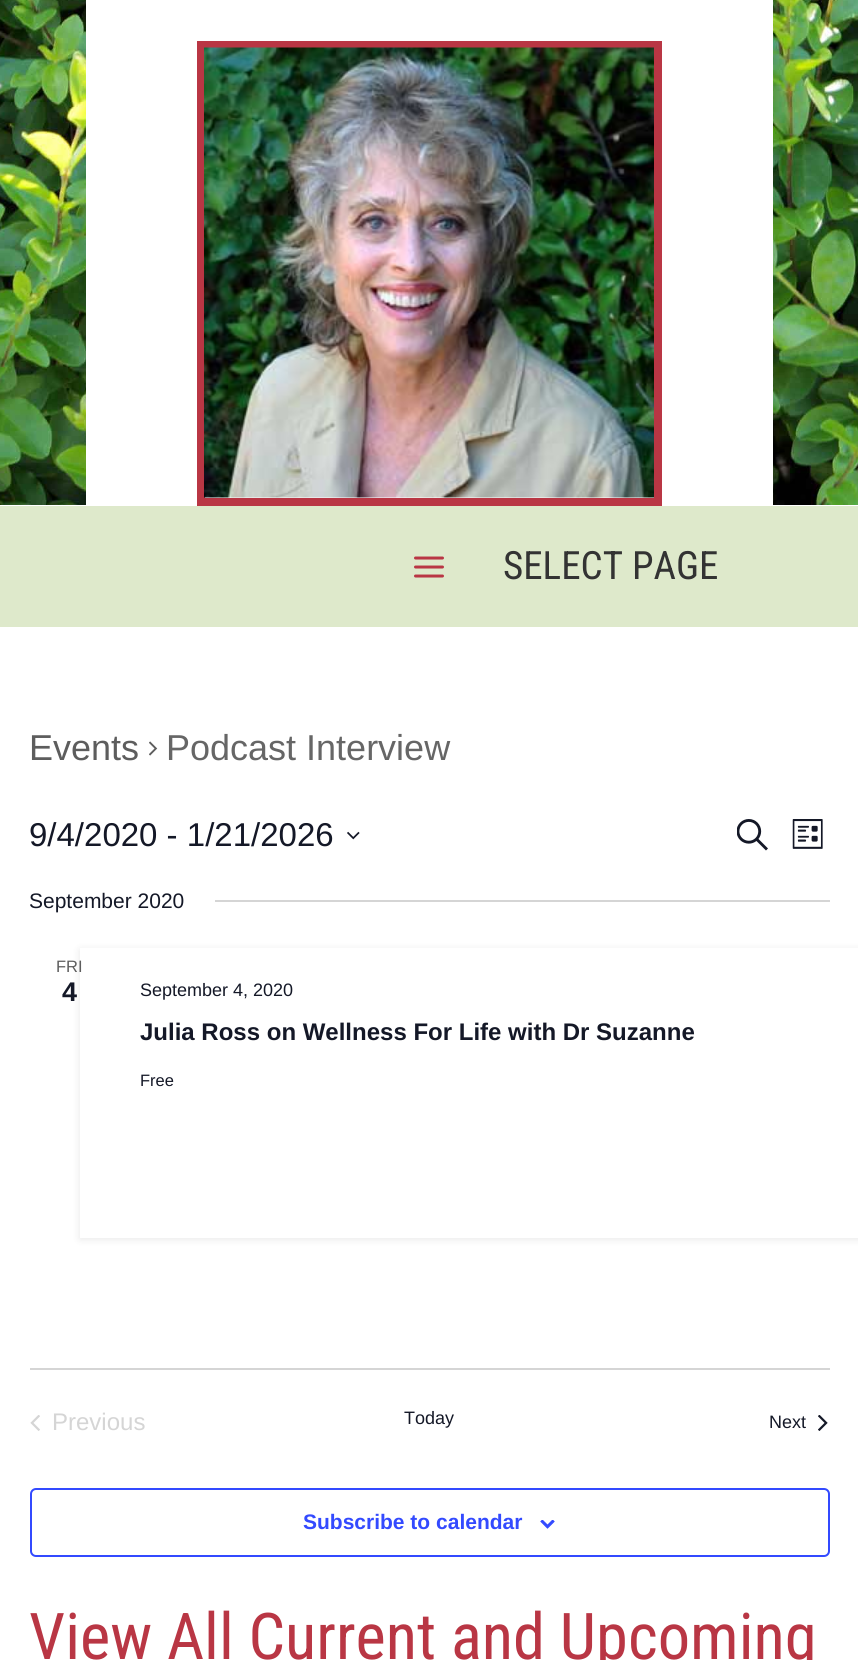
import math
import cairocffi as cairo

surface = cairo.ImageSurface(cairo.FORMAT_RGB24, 858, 1660)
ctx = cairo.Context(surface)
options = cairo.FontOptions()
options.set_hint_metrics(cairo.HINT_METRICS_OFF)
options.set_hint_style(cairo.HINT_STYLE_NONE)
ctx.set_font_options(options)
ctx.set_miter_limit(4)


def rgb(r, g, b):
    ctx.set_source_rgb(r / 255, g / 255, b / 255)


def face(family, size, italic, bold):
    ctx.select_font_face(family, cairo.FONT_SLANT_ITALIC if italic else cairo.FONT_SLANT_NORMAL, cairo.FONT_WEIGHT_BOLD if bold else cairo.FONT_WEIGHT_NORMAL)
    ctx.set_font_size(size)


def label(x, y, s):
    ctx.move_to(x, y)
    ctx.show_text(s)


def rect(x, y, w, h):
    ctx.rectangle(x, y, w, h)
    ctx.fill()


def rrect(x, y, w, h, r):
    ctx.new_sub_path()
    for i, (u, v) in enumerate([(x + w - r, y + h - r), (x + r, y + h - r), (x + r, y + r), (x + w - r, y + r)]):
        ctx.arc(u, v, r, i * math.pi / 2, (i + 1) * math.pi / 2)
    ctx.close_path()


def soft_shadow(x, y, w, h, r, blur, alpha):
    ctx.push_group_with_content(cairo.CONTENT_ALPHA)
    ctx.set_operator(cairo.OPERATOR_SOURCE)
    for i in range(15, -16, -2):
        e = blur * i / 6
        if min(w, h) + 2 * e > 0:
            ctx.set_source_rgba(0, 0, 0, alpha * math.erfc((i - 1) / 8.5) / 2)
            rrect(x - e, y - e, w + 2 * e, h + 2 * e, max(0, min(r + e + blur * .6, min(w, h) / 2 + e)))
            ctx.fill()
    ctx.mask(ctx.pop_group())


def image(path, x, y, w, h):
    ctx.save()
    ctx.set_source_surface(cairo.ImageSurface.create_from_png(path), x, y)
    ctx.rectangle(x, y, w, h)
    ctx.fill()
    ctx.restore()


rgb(255, 255, 255)
ctx.paint()
image('image0.png', 0, 0, 858, 505)
rgb(255, 255, 255)
rect(86, 0, 687, 505)
ctx.rectangle(201, 45, 457, 457)
rgb(185, 54, 68)
ctx.set_line_width(8)
ctx.stroke()
image('image1.png', 204, 47, 450, 451)
rgb(222, 233, 203)
rect(0, 506, 858, 121)
image('image2.png', 414, 556, 30, 22)
face('Roboto Condensed', 39, 0, 0)
rgb(51, 51, 51)
label(503, 579, 'SELECT PAGE')
face('Liberation Sans', 36, 0, 0)
rgb(93, 93, 93)
label(29, 760, 'Events')
image('image3.png', 149, 741, 9, 15)
rgb(102, 102, 102)
label(166, 760, 'Podcast Interview')
face('Liberation Sans', 33, 0, 0)
rgb(20, 24, 39)
label(29, 846, '9/4/2020 - 1/21/2026')
image('image4.png', 347, 831, 13, 9)
image('image5.png', 737, 819, 31, 32)
image('image6.png', 792, 819, 31, 30)
face('Liberation Sans', 21, 0, 0)
label(29, 908, 'September 2020')
rgb(213, 213, 213)
rect(215, 900, 615, 2)
ctx.save()
ctx.set_fill_rule(cairo.FILL_RULE_EVEN_ODD)
ctx.new_path()
ctx.move_to(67, 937)
ctx.line_to(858, 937)
ctx.line_to(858, 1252)
ctx.line_to(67, 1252)
ctx.close_path()
ctx.move_to(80, 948)
ctx.line_to(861, 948)
ctx.line_to(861, 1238)
ctx.line_to(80, 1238)
ctx.close_path()
ctx.clip()
rgb(0, 0, 0)
soft_shadow(80, 950, 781, 289, 0, 4, 0.1)
ctx.restore()
face('Liberation Sans', 16.5, 0, 0)
rgb(93, 93, 93)
label(56, 972, 'FRI')
face('Liberation Sans', 27, 0, 1)
rgb(20, 24, 39)
label(62, 1001, '4')
face('Liberation Sans', 18, 0, 0)
label(140, 996, 'September 4, 2020')
face('Liberation Sans', 24, 0, 1)
label(140, 1040, 'Julia Ross on Wellness For Life with Dr Suzanne')
face('Liberation Sans', 16.5, 0, 0)
label(140, 1086, 'Free')
rgb(213, 213, 213)
rect(30, 1368, 800, 2)
image('image7.png', 30, 1415, 10, 16)
face('Liberation Sans', 24, 0, 0)
label(52, 1430, 'Previous')
face('Liberation Sans', 18, 0, 0)
rgb(20, 24, 39)
label(404, 1424, 'Today')
label(769, 1428, 'Next')
image('image8.png', 818, 1415, 10, 16)
rrect(31, 1489, 798, 67, 5)
rgb(51, 74, 255)
ctx.set_line_width(2)
ctx.stroke()
face('Liberation Sans', 21, 0, 1)
label(303, 1529, 'Subscribe to calendar')
image('image9.png', 540, 1520, 15, 9)
face('Roboto Condensed', 64.5, 0, 0)
rgb(185, 54, 68)
label(29, 1659, 'View All Current and Upcoming')
surface.write_to_png('render.png')
